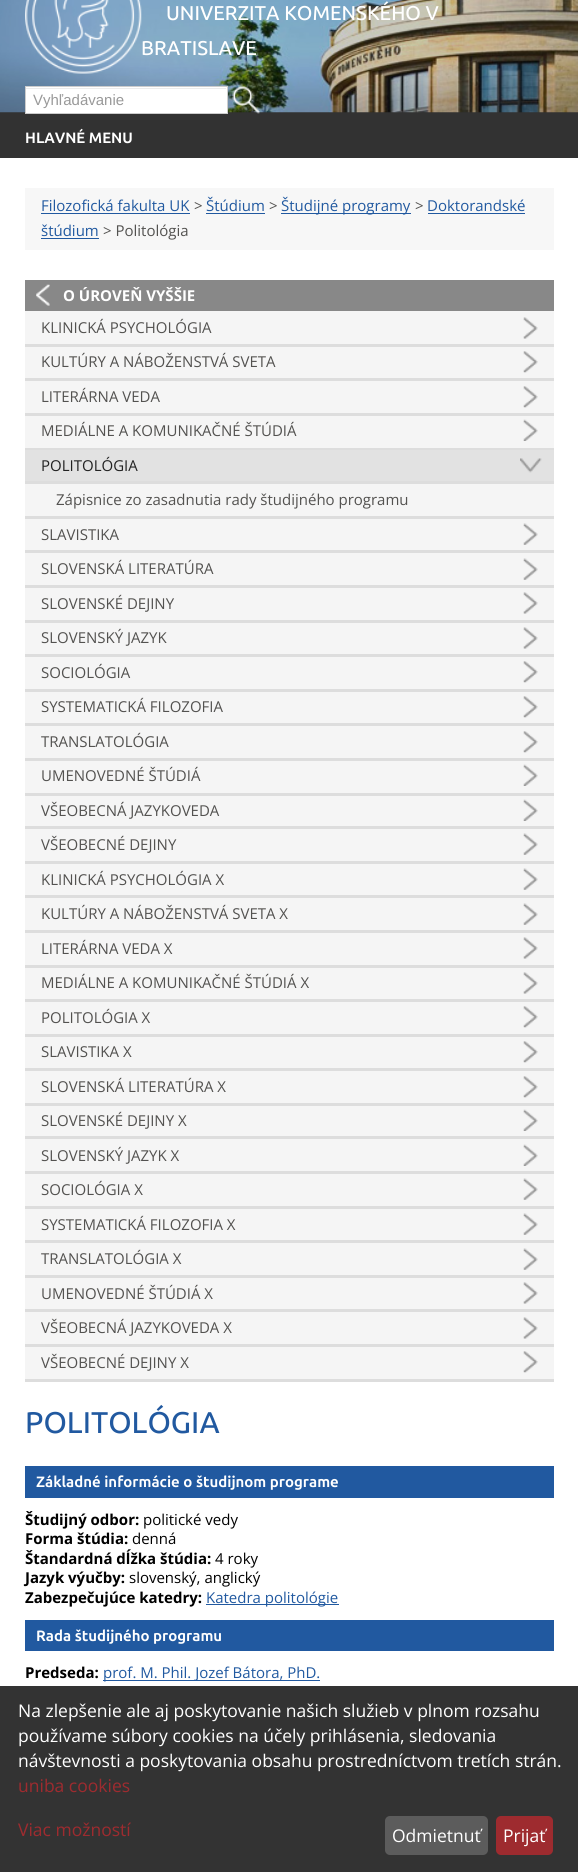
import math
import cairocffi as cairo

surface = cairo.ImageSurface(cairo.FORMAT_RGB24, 578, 1872)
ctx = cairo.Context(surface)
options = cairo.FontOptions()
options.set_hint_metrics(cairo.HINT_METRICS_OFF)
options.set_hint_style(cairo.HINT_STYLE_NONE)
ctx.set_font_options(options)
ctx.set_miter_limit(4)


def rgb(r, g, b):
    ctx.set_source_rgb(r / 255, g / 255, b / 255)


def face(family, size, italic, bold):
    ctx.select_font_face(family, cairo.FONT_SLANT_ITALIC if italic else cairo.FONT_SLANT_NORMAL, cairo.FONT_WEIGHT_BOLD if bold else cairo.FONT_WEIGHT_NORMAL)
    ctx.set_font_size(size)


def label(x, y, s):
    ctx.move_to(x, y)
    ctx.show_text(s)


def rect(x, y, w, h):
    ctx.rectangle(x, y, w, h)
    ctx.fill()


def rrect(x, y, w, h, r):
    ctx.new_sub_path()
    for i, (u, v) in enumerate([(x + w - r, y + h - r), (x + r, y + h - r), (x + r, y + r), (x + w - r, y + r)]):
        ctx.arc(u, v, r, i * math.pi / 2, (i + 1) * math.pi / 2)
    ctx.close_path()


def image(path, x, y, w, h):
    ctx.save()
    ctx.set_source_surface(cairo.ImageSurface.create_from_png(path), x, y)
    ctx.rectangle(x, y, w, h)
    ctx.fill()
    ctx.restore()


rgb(255, 255, 255)
ctx.paint()
rgb(50, 50, 50)
rect(0, 112, 578, 46)
image('image0.png', 0, 0, 578, 113)
image('image1.png', 25, 0, 117, 74)
face('Ubuntu Medium', 20, 0, 0)
rgb(255, 255, 255)
label(166, 20, 'UNIVERZITA KOMENSKÉHO V')
label(141, 55, 'BRATISLAVE')
rect(26, 87, 201, 26)
rgb(236, 236, 236)
rect(26, 88, 200, 1)
ctx.rectangle(25.5, 86.5, 202, 27)
rgb(204, 204, 204)
ctx.set_line_width(1)
ctx.stroke()
face('Liberation Sans', 15, 0, 0)
rgb(153, 153, 153)
label(33, 105, 'Vyhľadávanie')
image('image2.png', 232, 86, 28, 28)
face('Ubuntu', 15, 0, 1)
rgb(255, 255, 255)
label(25, 143, 'HLAVNÉ MENU')
rgb(247, 247, 247)
rect(25, 188, 529, 62)
face('Open Sans', 15, 0, 0)
rgb(33, 89, 160)
label(41, 211, 'Filozofická fakulta UK')
rect(41, 213, 149, 1)
rgb(83, 82, 80)
label(194, 211, '>')
rgb(33, 89, 160)
label(206, 211, 'Štúdium')
rect(206, 213, 59, 1)
rgb(83, 82, 80)
label(269, 211, '>')
rgb(33, 89, 160)
rect(281, 213, 130, 1)
label(281, 211, 'Študijné programy')
rgb(83, 82, 80)
label(415, 211, '>')
rgb(33, 89, 160)
label(427, 211, 'Doktorandské')
rect(428, 213, 97, 1)
label(41, 236, 'štúdium')
rect(41, 238, 58, 1)
rgb(83, 82, 80)
label(103, 236, '> Politológia')
rgb(245, 245, 245)
rect(25, 311, 529, 1068)
rgb(136, 136, 136)
rect(25, 280, 529, 31)
image('image3.png', 36, 284, 14, 22)
face('Open Sans', 15, 0, 1)
rgb(255, 255, 255)
label(63, 301, 'O ÚROVEŇ VYŠŠIE')
rgb(221, 221, 221)
rect(25, 344, 529, 3)
image('image4.png', 523, 317, 15, 22)
face('Open Sans', 15, 0, 0)
rgb(83, 82, 80)
label(41, 333, 'KLINICKÁ PSYCHOLÓGIA')
rgb(221, 221, 221)
rect(25, 378, 529, 3)
image('image5.png', 523, 351, 15, 22)
rgb(83, 82, 80)
label(41, 367, 'KULTÚRY A NÁBOŽENSTVÁ SVETA')
rgb(221, 221, 221)
rect(25, 413, 529, 3)
image('image5.png', 523, 386, 15, 22)
rgb(83, 82, 80)
label(41, 402, 'LITERÁRNA VEDA')
rgb(221, 221, 221)
rect(25, 448, 529, 2)
image('image6.png', 523, 419, 15, 22)
rgb(83, 82, 80)
label(41, 436, 'MEDIÁLNE A KOMUNIKAČNÉ ŠTÚDIÁ')
rgb(221, 221, 221)
rect(25, 516, 529, 3)
rgb(226, 226, 226)
rect(25, 450, 529, 31)
image('image7.png', 520, 458, 22, 15)
rgb(34, 34, 34)
label(41, 471, 'POLITOLÓGIA')
rgb(221, 221, 221)
rect(25, 481, 529, 3)
rgb(83, 82, 80)
label(56, 505, 'Zápisnice zo zasadnutia rady študijného programu')
rgb(221, 221, 221)
rect(25, 550, 529, 3)
image('image8.png', 523, 523, 15, 22)
rgb(83, 82, 80)
label(41, 540, 'SLAVISTIKA')
rgb(221, 221, 221)
rect(25, 585, 529, 3)
image('image8.png', 523, 558, 15, 22)
rgb(83, 82, 80)
label(41, 574, 'SLOVENSKÁ LITERATÚRA')
rgb(221, 221, 221)
rect(25, 620, 529, 3)
image('image4.png', 523, 592, 15, 22)
rgb(83, 82, 80)
label(41, 609, 'SLOVENSKÉ DEJINY')
rgb(221, 221, 221)
rect(25, 654, 529, 3)
image('image4.png', 523, 627, 15, 22)
rgb(83, 82, 80)
label(41, 643, 'SLOVENSKÝ JAZYK')
rgb(221, 221, 221)
rect(25, 689, 529, 3)
image('image5.png', 523, 661, 15, 22)
rgb(83, 82, 80)
label(41, 678, 'SOCIOLÓGIA')
rgb(221, 221, 221)
rect(25, 723, 529, 3)
image('image9.png', 523, 696, 15, 22)
rgb(83, 82, 80)
label(41, 712, 'SYSTEMATICKÁ FILOZOFIA')
rgb(221, 221, 221)
rect(25, 758, 529, 3)
image('image5.png', 523, 731, 15, 22)
rgb(83, 82, 80)
label(41, 747, 'TRANSLATOLÓGIA')
rgb(221, 221, 221)
rect(25, 793, 529, 3)
image('image6.png', 523, 764, 15, 22)
rgb(83, 82, 80)
label(41, 781, 'UMENOVEDNÉ ŠTÚDIÁ')
rgb(221, 221, 221)
rect(25, 826, 529, 3)
image('image6.png', 523, 799, 15, 22)
rgb(83, 82, 80)
label(41, 816, 'VŠEOBECNÁ JAZYKOVEDA')
rgb(221, 221, 221)
rect(25, 861, 529, 3)
image('image8.png', 523, 833, 15, 22)
rgb(83, 82, 80)
label(41, 850, 'VŠEOBECNÉ DEJINY')
rgb(221, 221, 221)
rect(25, 895, 529, 3)
image('image8.png', 523, 868, 15, 22)
rgb(83, 82, 80)
label(41, 885, 'KLINICKÁ PSYCHOLÓGIA X')
rgb(221, 221, 221)
rect(25, 930, 529, 3)
image('image8.png', 523, 903, 15, 22)
rgb(83, 82, 80)
label(41, 919, 'KULTÚRY A NÁBOŽENSTVÁ SVETA X')
rgb(221, 221, 221)
rect(25, 965, 529, 3)
image('image10.png', 523, 937, 15, 22)
rgb(83, 82, 80)
label(41, 954, 'LITERÁRNA VEDA X')
rgb(221, 221, 221)
rect(25, 999, 529, 3)
image('image4.png', 523, 972, 15, 22)
rgb(83, 82, 80)
label(41, 988, 'MEDIÁLNE A KOMUNIKAČNÉ ŠTÚDIÁ X')
rgb(221, 221, 221)
rect(25, 1034, 529, 3)
image('image5.png', 523, 1006, 15, 22)
rgb(83, 82, 80)
label(41, 1023, 'POLITOLÓGIA X')
rgb(221, 221, 221)
rect(25, 1068, 529, 3)
image('image5.png', 523, 1041, 15, 22)
rgb(83, 82, 80)
label(41, 1057, 'SLAVISTIKA X')
rgb(221, 221, 221)
rect(25, 1103, 529, 3)
image('image11.png', 523, 1076, 15, 22)
rgb(83, 82, 80)
label(41, 1092, 'SLOVENSKÁ LITERATÚRA X')
rgb(221, 221, 221)
rect(25, 1136, 529, 3)
image('image6.png', 523, 1109, 15, 22)
rgb(83, 82, 80)
label(41, 1126, 'SLOVENSKÉ DEJINY X')
rgb(221, 221, 221)
rect(25, 1171, 529, 3)
image('image6.png', 523, 1144, 15, 22)
rgb(83, 82, 80)
label(41, 1161, 'SLOVENSKÝ JAZYK X')
rgb(221, 221, 221)
rect(25, 1206, 529, 3)
image('image8.png', 523, 1178, 15, 22)
rgb(83, 82, 80)
label(41, 1195, 'SOCIOLÓGIA X')
rgb(221, 221, 221)
rect(25, 1240, 529, 3)
image('image8.png', 523, 1213, 15, 22)
rgb(83, 82, 80)
label(41, 1230, 'SYSTEMATICKÁ FILOZOFIA X')
rgb(221, 221, 221)
rect(25, 1275, 529, 3)
image('image8.png', 523, 1248, 15, 22)
rgb(83, 82, 80)
label(41, 1264, 'TRANSLATOLÓGIA X')
rgb(221, 221, 221)
rect(25, 1309, 529, 3)
image('image4.png', 523, 1282, 15, 22)
rgb(83, 82, 80)
label(41, 1299, 'UMENOVEDNÉ ŠTÚDIÁ X')
rgb(221, 221, 221)
rect(25, 1344, 529, 3)
image('image4.png', 523, 1317, 15, 22)
rgb(83, 82, 80)
label(41, 1333, 'VŠEOBECNÁ JAZYKOVEDA X')
rgb(221, 221, 221)
rect(25, 1379, 529, 3)
image('image5.png', 523, 1351, 15, 22)
rgb(83, 82, 80)
label(41, 1368, 'VŠEOBECNÉ DEJINY X')
face('Ubuntu Medium', 30, 0, 0)
rgb(33, 89, 160)
label(25, 1433, 'POLITOLÓGIA')
rect(25, 1466, 529, 32)
face('Ubuntu', 15, 0, 1)
rgb(255, 255, 255)
label(36, 1487, 'Základné informácie o študijnom programe')
face('Open Sans', 15, 0, 1)
rgb(0, 0, 0)
label(25, 1525, 'Študijný odbor:')
face('Open Sans', 15, 0, 0)
label(143, 1525, 'politické vedy')
face('Open Sans', 15, 0, 1)
label(25, 1544, 'Forma štúdia:')
face('Open Sans', 15, 0, 0)
label(132, 1544, 'denná')
face('Open Sans', 15, 0, 1)
label(25, 1564, 'Štandardná dĺžka štúdia:')
face('Open Sans', 15, 0, 0)
label(215, 1564, '4 roky')
face('Open Sans', 15, 0, 1)
label(25, 1583, 'Jazyk výučby:')
face('Open Sans', 15, 0, 0)
label(129, 1583, 'slovenský, anglický')
face('Open Sans', 15, 0, 1)
label(25, 1603, 'Zabezpečujúce katedry:')
rgb(33, 89, 160)
rect(206, 1604, 133, 1)
face('Open Sans', 15, 0, 0)
label(206, 1603, 'Katedra politológie')
rect(25, 1620, 529, 31)
face('Ubuntu', 15, 0, 1)
rgb(255, 255, 255)
label(36, 1641, 'Rada študijného programu')
face('Open Sans', 15, 0, 1)
rgb(0, 0, 0)
label(25, 1678, 'Predseda:')
rgb(33, 89, 160)
rect(103, 1680, 217, 1)
face('Open Sans', 15, 0, 0)
label(103, 1678, 'prof. M. Phil. Jozef Bátora, PhD.')
rgb(51, 51, 51)
rect(0, 1686, 578, 186)
face('Open Sans', 17.5, 0, 0)
rgb(255, 255, 255)
label(18, 1717, 'Na zlepšenie ale aj poskytovanie našich služieb v plnom rozsahu')
label(18, 1742, 'používame súbory cookies na účely prihlásenia, sledovania')
label(18, 1767, 'návštevnosti a poskytovania obsahu prostredníctvom tretích strán.')
rgb(158, 43, 47)
label(18, 1792, 'uniba cookies')
label(18, 1836, 'Viac možností')
rgb(92, 92, 92)
rrect(385, 1816, 103, 39, 5)
ctx.fill()
rgb(255, 255, 255)
label(392, 1842, 'Odmietnuť')
rgb(158, 43, 47)
rrect(496, 1816, 57, 39, 5)
ctx.fill()
rgb(255, 255, 255)
label(503, 1842, 'Prijať')
surface.write_to_png('render.png')
